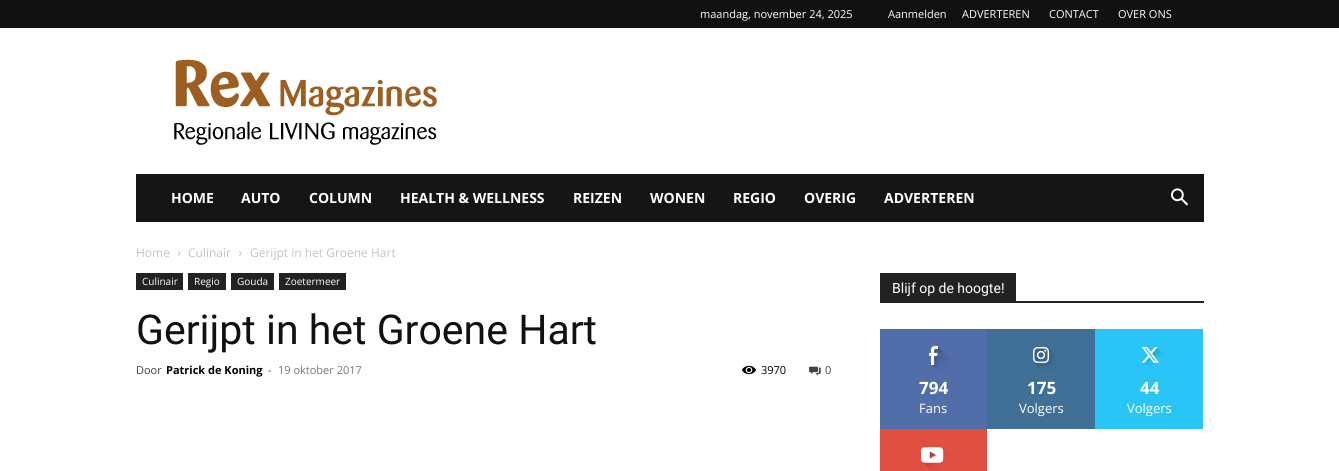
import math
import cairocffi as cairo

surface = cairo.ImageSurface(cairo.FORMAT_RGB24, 1339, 471)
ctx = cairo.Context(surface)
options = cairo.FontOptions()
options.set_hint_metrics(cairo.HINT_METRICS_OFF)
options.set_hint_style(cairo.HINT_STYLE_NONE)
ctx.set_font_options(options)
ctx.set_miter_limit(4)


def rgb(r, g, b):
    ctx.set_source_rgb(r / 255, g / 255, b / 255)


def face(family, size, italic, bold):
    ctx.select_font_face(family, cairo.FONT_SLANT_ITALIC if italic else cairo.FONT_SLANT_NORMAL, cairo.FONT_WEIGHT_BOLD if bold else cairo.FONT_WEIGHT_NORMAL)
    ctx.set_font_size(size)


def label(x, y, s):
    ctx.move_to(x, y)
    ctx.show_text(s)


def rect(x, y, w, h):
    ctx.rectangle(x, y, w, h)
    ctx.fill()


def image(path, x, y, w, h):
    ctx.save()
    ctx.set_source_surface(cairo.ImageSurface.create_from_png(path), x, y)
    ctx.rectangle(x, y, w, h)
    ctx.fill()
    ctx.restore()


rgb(255, 255, 255)
ctx.paint()
rgb(17, 17, 17)
rect(0, 0, 1339, 28)
face('Open Sans', 11, 0, 0)
rgb(255, 255, 255)
label(700, 18, 'maandag, november 24, 2025')
label(888, 18, 'Aanmelden')
label(962, 18, 'ADVERTEREN')
label(1049, 18, 'CONTACT')
label(1118, 18, 'OVER ONS')
image('image0.png', 174, 59, 263, 86)
rgb(21, 21, 21)
rect(136, 174, 1068, 48)
face('Open Sans', 14, 0, 1)
rgb(255, 255, 255)
label(171, 203, 'HOME')
label(241, 203, 'AUTO')
label(309, 203, 'COLUMN')
label(400, 203, 'HEALTH & WELLNESS')
label(573, 203, 'REIZEN')
label(650, 203, 'WONEN')
label(733, 203, 'REGIO')
label(804, 203, 'OVERIG')
label(884, 203, 'ADVERTEREN')
image('image1.png', 1171, 188, 17, 18)
face('Open Sans', 12, 0, 0)
rgb(195, 195, 195)
label(136, 257, 'Home')
image('image2.png', 178, 251, 3, 5)
label(188, 257, 'Culinair')
image('image2.png', 239, 251, 3, 5)
label(250, 257, 'Gerijpt in het Groene Hart')
rgb(34, 34, 34)
rect(136, 273, 47, 17)
face('Open Sans', 10, 0, 0)
rgb(255, 255, 255)
label(142, 285, 'Culinair')
rgb(34, 34, 34)
rect(188, 273, 38, 17)
rgb(255, 255, 255)
label(194, 285, 'Regio')
rgb(34, 34, 34)
rect(231, 273, 43, 17)
rgb(255, 255, 255)
label(237, 285, 'Gouda')
rgb(34, 34, 34)
rect(279, 273, 67, 17)
rgb(255, 255, 255)
label(285, 285, 'Zoetermeer')
face('Roboto', 41, 0, 0)
rgb(17, 17, 17)
label(136, 344, 'Gerijpt in het Groene Hart')
face('Open Sans', 11, 0, 0)
rgb(68, 68, 68)
label(136, 374, 'Door')
face('Open Sans', 11, 0, 1)
rgb(0, 0, 0)
label(166, 374, 'Patrick de Koning')
face('Open Sans', 11, 0, 0)
rgb(68, 68, 68)
label(268, 374, '-')
rgb(118, 118, 118)
label(278, 374, '19 oktober 2017')
image('image3.png', 742, 365, 14, 10)
rgb(0, 0, 0)
label(761, 374, '3970')
image('image4.png', 809, 366, 12, 10)
rgb(68, 68, 68)
label(825, 374, '0')
rgb(34, 34, 34)
rect(880, 301, 324, 2)
rect(880, 273, 136, 28)
face('Roboto', 14, 0, 0)
rgb(255, 255, 255)
label(892, 293, 'Blijf op de hoogte!')
rgb(81, 110, 171)
rect(880, 329, 107, 100)
image('image5.png', 929, 346, 20, 25)
face('Open Sans', 17, 0, 1)
rgb(255, 255, 255)
label(919, 394, '794')
face('Open Sans', 13, 0, 0)
label(919, 413, 'Fans')
rgb(65, 112, 150)
rect(987, 329, 108, 100)
image('image6.png', 1033, 347, 23, 23)
face('Open Sans', 17, 0, 1)
rgb(255, 255, 255)
label(1027, 394, '175')
face('Open Sans', 13, 0, 0)
label(1019, 413, 'Volgers')
rgb(41, 197, 246)
rect(1095, 329, 108, 100)
image('image7.png', 1141, 347, 23, 21)
face('Open Sans', 17, 0, 1)
rgb(255, 255, 255)
label(1140, 394, '44')
face('Open Sans', 13, 0, 0)
label(1127, 413, 'Volgers')
rgb(225, 78, 66)
rect(880, 429, 107, 42)
image('image8.png', 921, 447, 27, 24)
surface.write_to_png('render.png')
